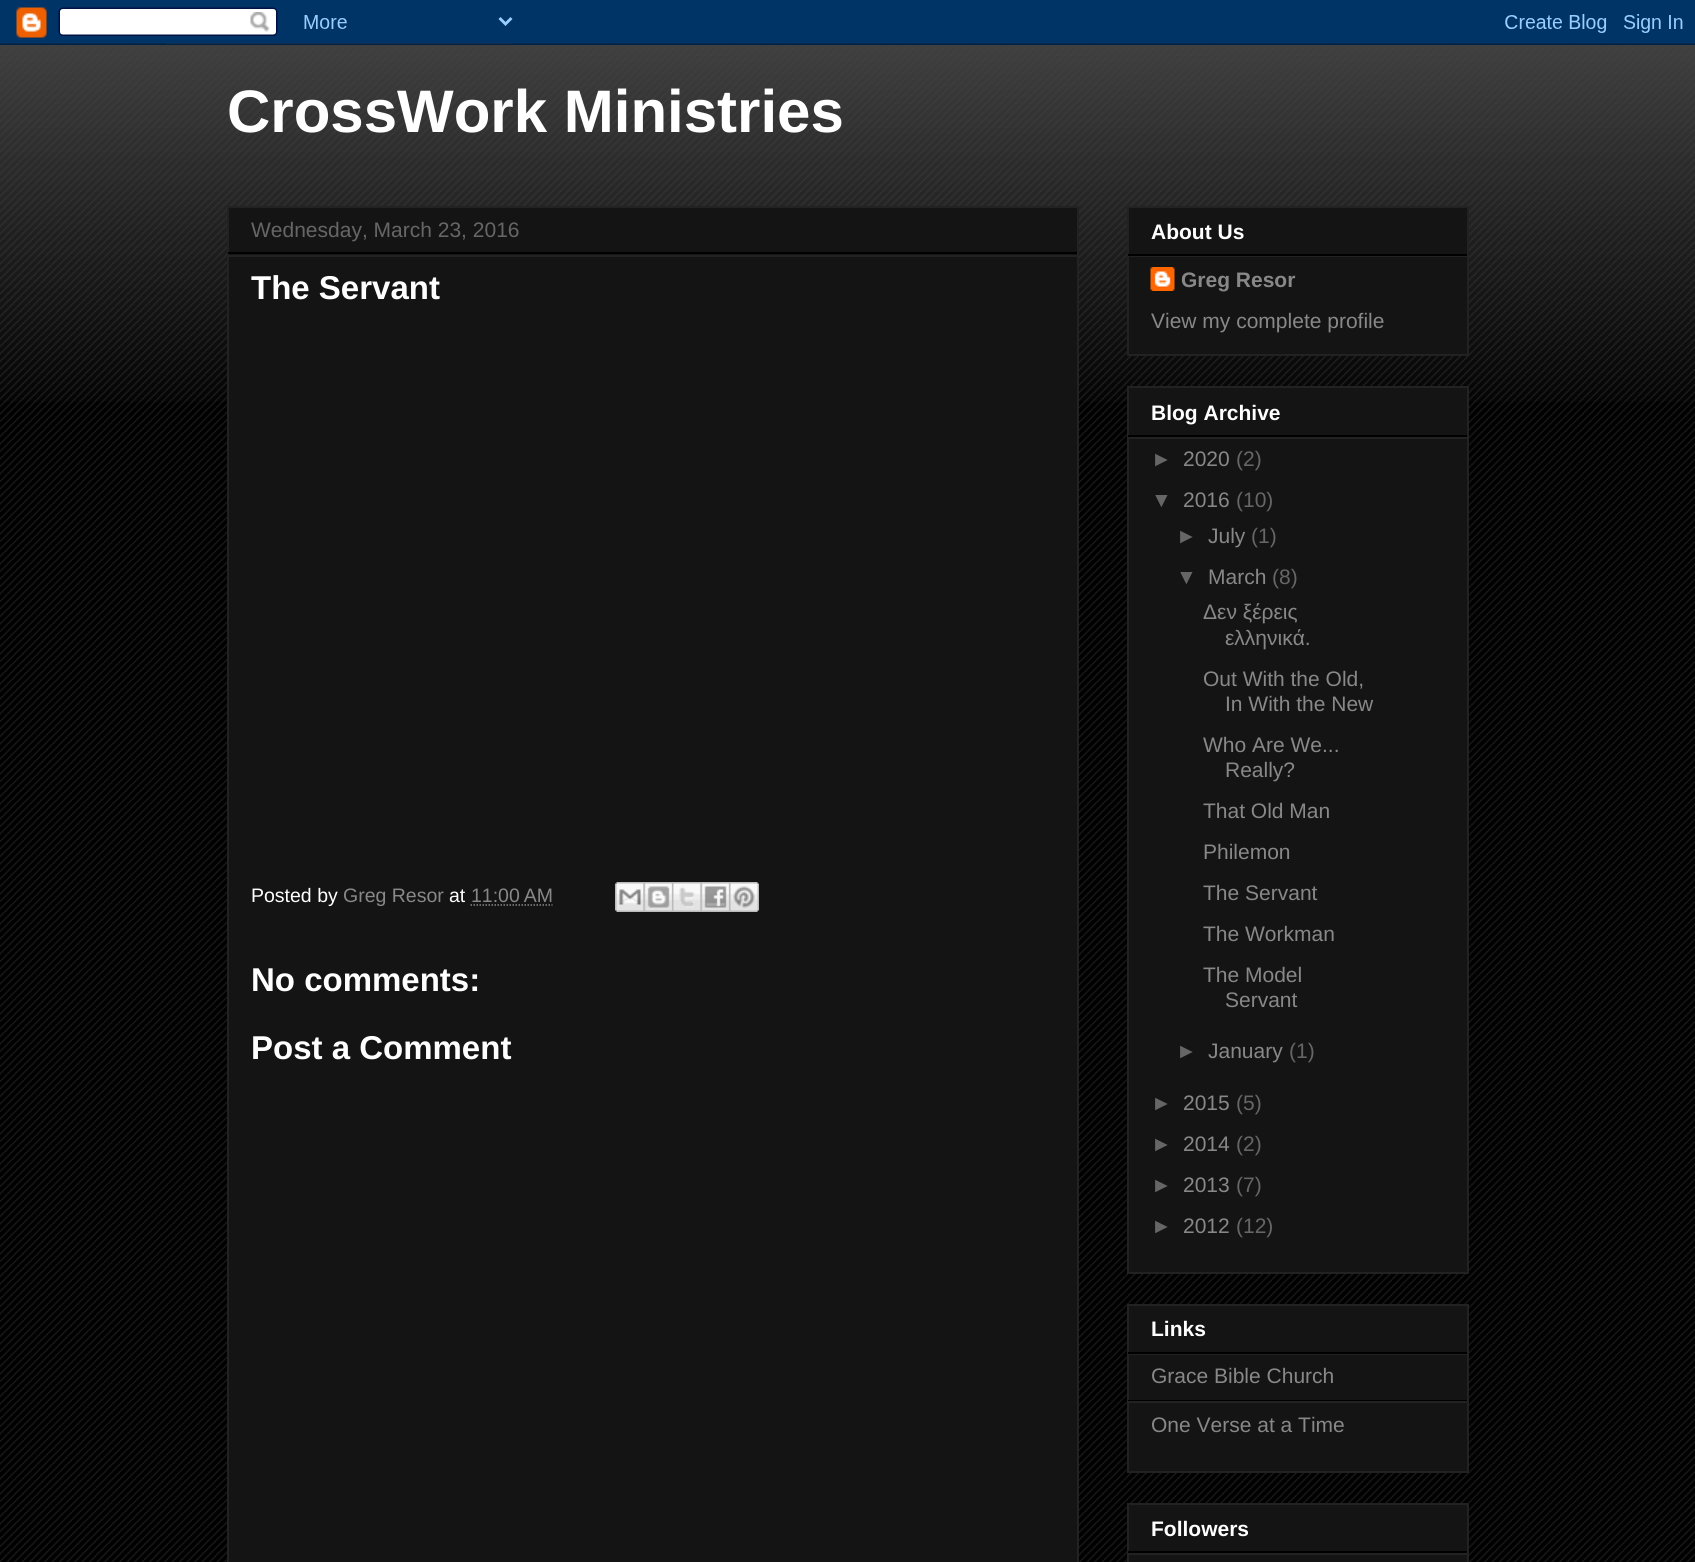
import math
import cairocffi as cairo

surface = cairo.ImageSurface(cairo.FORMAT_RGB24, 1695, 1562)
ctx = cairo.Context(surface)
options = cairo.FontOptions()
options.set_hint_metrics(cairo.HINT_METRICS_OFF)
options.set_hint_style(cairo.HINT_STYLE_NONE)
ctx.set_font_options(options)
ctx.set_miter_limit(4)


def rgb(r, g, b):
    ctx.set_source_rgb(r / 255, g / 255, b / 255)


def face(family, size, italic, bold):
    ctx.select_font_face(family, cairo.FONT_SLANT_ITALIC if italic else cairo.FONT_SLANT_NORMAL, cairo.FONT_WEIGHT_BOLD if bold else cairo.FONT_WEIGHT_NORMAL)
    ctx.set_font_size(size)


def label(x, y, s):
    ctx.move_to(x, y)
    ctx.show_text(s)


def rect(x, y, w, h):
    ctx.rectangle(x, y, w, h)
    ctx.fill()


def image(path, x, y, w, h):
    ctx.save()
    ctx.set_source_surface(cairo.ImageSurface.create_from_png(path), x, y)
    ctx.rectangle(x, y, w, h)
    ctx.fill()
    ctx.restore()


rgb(0, 0, 0)
ctx.paint()
image('image0.png', 0, 43, 1695, 1519)
image('image2.png', 0, 43, 1695, 359)
image('image1.png', 0, 0, 1695, 45)
face('Liberation Sans', 60, 0, 1)
rgb(255, 255, 255)
label(227, 132, 'CrossWork Ministries')
rgb(20, 20, 20)
ctx.rectangle(228, 207, 850, 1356)
ctx.fill_preserve()
rgb(34, 34, 34)
ctx.stroke()
rgb(0, 0, 0)
rect(228, 252, 849, 2)
face('Liberation Sans', 21, 0, 0)
rgb(102, 102, 102)
label(251, 237, 'Wednesday, March 23, 2016')
rgb(34, 34, 34)
rect(228, 255, 849, 2)
face('Liberation Sans', 33, 0, 1)
rgb(255, 255, 255)
label(251, 299, 'The Servant')
face('Liberation Sans', 19.5, 0, 0)
label(251, 902, 'Posted by')
rgb(136, 136, 136)
label(343, 902, 'Greg Resor')
rgb(255, 255, 255)
label(449, 902, 'at')
rgb(136, 136, 136)
label(471, 902, '11:00 AM')
ctx.new_path()
ctx.move_to(470.5, 905)
ctx.line_to(552.5, 905)
ctx.set_line_width(1.5)
ctx.set_dash([1.5, 1.5])
ctx.stroke()
image('image3.png', 615, 882, 29, 30)
image('image4.png', 643, 882, 29, 30)
image('image5.png', 672, 882, 29, 30)
image('image6.png', 700, 882, 29, 30)
image('image7.png', 729, 882, 30, 30)
face('Liberation Sans', 33, 0, 1)
rgb(255, 255, 255)
label(251, 991, 'No comments:')
label(251, 1059, 'Post a Comment')
rgb(20, 20, 20)
ctx.rectangle(1128, 207, 340, 148)
ctx.fill_preserve()
rgb(34, 34, 34)
ctx.set_line_width(2)
ctx.set_dash([])
ctx.stroke()
rgb(0, 0, 0)
rect(1128, 254, 339, 2)
face('Liberation Sans', 21, 0, 1)
rgb(255, 255, 255)
label(1151, 239, 'About Us')
rgb(34, 34, 34)
rect(1128, 256, 339, 1)
image('image8.png', 1150, 267, 25, 24)
rgb(136, 136, 136)
label(1181, 287, 'Greg Resor')
face('Liberation Sans', 21, 0, 0)
label(1151, 328, 'View my complete profile')
rgb(20, 20, 20)
ctx.rectangle(1128, 387, 340, 886)
ctx.fill_preserve()
rgb(34, 34, 34)
ctx.stroke()
rgb(0, 0, 0)
rect(1128, 435, 339, 2)
face('Liberation Sans', 21, 0, 1)
rgb(255, 255, 255)
label(1151, 420, 'Blog Archive')
rgb(34, 34, 34)
rect(1128, 437, 339, 2)
face('Liberation Sans', 21, 0, 0)
rgb(102, 102, 102)
label(1151, 466, '►')
rgb(136, 136, 136)
label(1183, 466, '2020')
rgb(102, 102, 102)
label(1236, 466, '(2)')
label(1151, 507, '▼')
rgb(136, 136, 136)
label(1183, 507, '2016')
rgb(102, 102, 102)
label(1236, 507, '(10)')
label(1176, 543, '►')
rgb(136, 136, 136)
label(1208, 543, 'July')
rgb(102, 102, 102)
label(1251, 543, '(1)')
label(1176, 584, '▼')
rgb(136, 136, 136)
label(1208, 584, 'March')
rgb(102, 102, 102)
label(1272, 584, '(8)')
rgb(136, 136, 136)
label(1203, 619, 'Δεν ξέρεις')
label(1225, 645, 'ελληνικά.')
label(1203, 686, 'Out With the Old,')
label(1225, 711, 'In With the New')
label(1203, 752, 'Who Are We...')
label(1225, 777, 'Really?')
label(1203, 818, 'That Old Man')
label(1203, 859, 'Philemon')
label(1203, 900, 'The Servant')
label(1203, 941, 'The Workman')
label(1203, 982, 'The Model')
label(1225, 1007, 'Servant')
rgb(102, 102, 102)
label(1176, 1058, '►')
rgb(136, 136, 136)
label(1208, 1058, 'January')
rgb(102, 102, 102)
label(1289, 1058, '(1)')
label(1151, 1110, '►')
rgb(136, 136, 136)
label(1183, 1110, '2015')
rgb(102, 102, 102)
label(1236, 1110, '(5)')
label(1151, 1151, '►')
rgb(136, 136, 136)
label(1183, 1151, '2014')
rgb(102, 102, 102)
label(1236, 1151, '(2)')
label(1151, 1192, '►')
rgb(136, 136, 136)
label(1183, 1192, '2013')
rgb(102, 102, 102)
label(1236, 1192, '(7)')
label(1151, 1233, '►')
rgb(136, 136, 136)
label(1183, 1233, '2012')
rgb(102, 102, 102)
label(1236, 1233, '(12)')
rgb(20, 20, 20)
ctx.rectangle(1128, 1305, 340, 167)
ctx.fill_preserve()
rgb(34, 34, 34)
ctx.stroke()
rgb(0, 0, 0)
rect(1128, 1352, 339, 2)
face('Liberation Sans', 21, 0, 1)
rgb(255, 255, 255)
label(1151, 1336, 'Links')
rgb(34, 34, 34)
rect(1128, 1354, 339, 1)
rgb(0, 0, 0)
rect(1128, 1400, 339, 1)
face('Liberation Sans', 21, 0, 0)
rgb(136, 136, 136)
label(1151, 1383, 'Grace Bible Church')
rgb(34, 34, 34)
rect(1128, 1401, 339, 2)
rgb(136, 136, 136)
label(1151, 1432, 'One Verse at a Time')
rgb(20, 20, 20)
ctx.rectangle(1128, 1504, 340, 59)
ctx.fill_preserve()
rgb(34, 34, 34)
ctx.stroke()
rgb(0, 0, 0)
rect(1128, 1551, 339, 2)
face('Liberation Sans', 21, 0, 1)
rgb(255, 255, 255)
label(1151, 1536, 'Followers')
rgb(34, 34, 34)
rect(1128, 1553, 339, 2)
surface.write_to_png('render.png')
